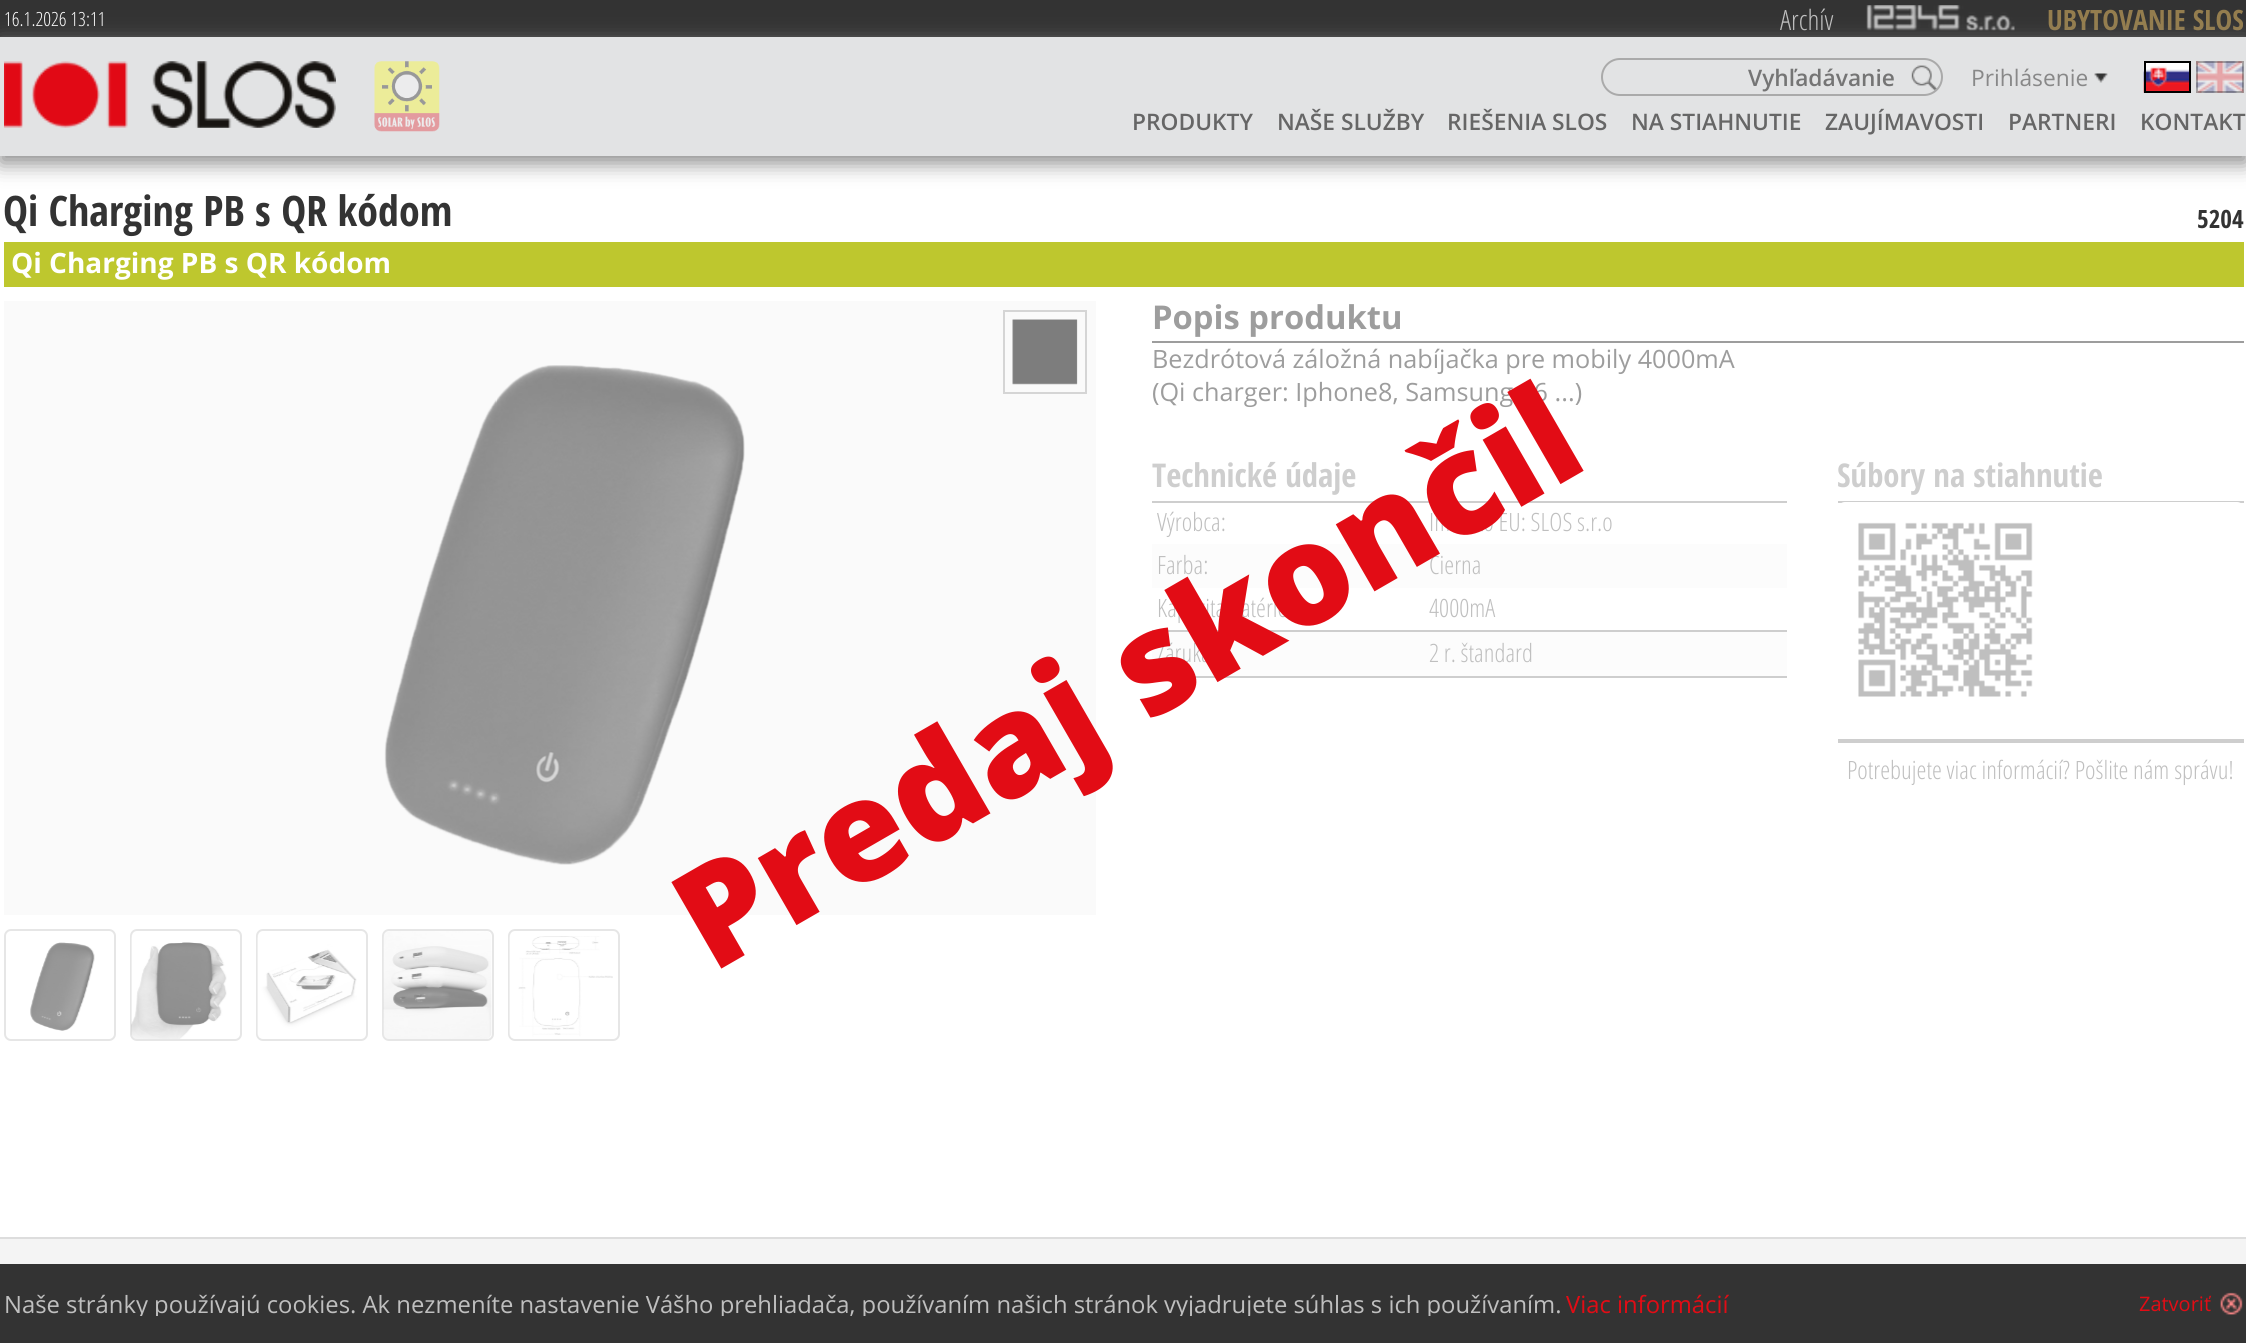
import math
import cairocffi as cairo

surface = cairo.ImageSurface(cairo.FORMAT_RGB24, 2246, 1343)
ctx = cairo.Context(surface)
options = cairo.FontOptions()
options.set_hint_metrics(cairo.HINT_METRICS_OFF)
options.set_hint_style(cairo.HINT_STYLE_NONE)
ctx.set_font_options(options)
ctx.set_miter_limit(4)


def rgb(r, g, b):
    ctx.set_source_rgb(r / 255, g / 255, b / 255)


def face(family, size, italic, bold):
    ctx.select_font_face(family, cairo.FONT_SLANT_ITALIC if italic else cairo.FONT_SLANT_NORMAL, cairo.FONT_WEIGHT_BOLD if bold else cairo.FONT_WEIGHT_NORMAL)
    ctx.set_font_size(size)


def label(x, y, s):
    ctx.move_to(x, y)
    ctx.show_text(s)


def rect(x, y, w, h):
    ctx.rectangle(x, y, w, h)
    ctx.fill()


def rrect(x, y, w, h, r):
    ctx.new_sub_path()
    for i, (u, v) in enumerate([(x + w - r, y + h - r), (x + r, y + h - r), (x + r, y + r), (x + w - r, y + r)]):
        ctx.arc(u, v, r, i * math.pi / 2, (i + 1) * math.pi / 2)
    ctx.close_path()


def soft_shadow(x, y, w, h, r, blur, alpha):
    ctx.push_group_with_content(cairo.CONTENT_ALPHA)
    ctx.set_operator(cairo.OPERATOR_SOURCE)
    for i in range(15, -16, -2):
        e = blur * i / 6
        if min(w, h) + 2 * e > 0:
            ctx.set_source_rgba(0, 0, 0, alpha * math.erfc((i - 1) / 8.5) / 2)
            rrect(x - e, y - e, w + 2 * e, h + 2 * e, max(0, min(r + e + blur * .6, min(w, h) / 2 + e)))
            ctx.fill()
    ctx.mask(ctx.pop_group())


def image(path, x, y, w, h):
    ctx.save()
    ctx.set_source_surface(cairo.ImageSurface.create_from_png(path), x, y)
    ctx.rectangle(x, y, w, h)
    ctx.fill()
    ctx.restore()


rgb(255, 255, 255)
ctx.paint()
rgb(51, 51, 51)
rect(0, 0, 2246, 37)
face('Open Sans Light', 19.5, 0, 0)
rgb(255, 255, 255)
label(4, 26, '16.1.2026 13:11')
face('Open Sans Light', 28, 0, 0)
rgb(191, 191, 191)
label(1780, 30, 'Archív')
image('image0.png', 1866, 5, 149, 26)
face('Open Sans Condensed', 28, 0, 1)
rgb(148, 125, 78)
label(2047, 30, 'UBYTOVANIE SLOS')
rgb(136, 136, 136)
soft_shadow(0, 44, 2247, 119, 0, 10.5, 1)
rgb(226, 227, 228)
rect(0, 37, 2246, 119)
image('image1.png', 4, 61, 332, 67)
image('image2.png', 374, 61, 66, 71)
image('image3.png', 1911, 65, 26, 26)
rrect(1602, 59, 340, 36, 18)
rgb(170, 170, 170)
ctx.stroke()
face('Open Sans SemiBold', 22.75, 0, 0)
rgb(117, 117, 117)
label(1748, 86, 'Vyhľadávanie')
image('image4.png', 2094, 73, 14, 10)
face('Open Sans', 22.75, 0, 0)
rgb(136, 136, 136)
label(1971, 86, 'Prihlásenie')
image('image5.png', 2143, 61, 46, 32)
ctx.rectangle(2145, 62, 45, 30)
rgb(0, 0, 0)
ctx.stroke()
image('image6.png', 2196, 61, 48, 32)
ctx.rectangle(2197, 62, 46, 30)
ctx.set_source_rgba(0, 0, 0, 0.3)
ctx.stroke()
face('Open Sans SemiBold', 22.75, 0, 0)
rgb(102, 102, 102)
label(1132, 130, 'PRODUKTY')
label(1277, 130, 'NAŠE SLUŽBY')
label(1447, 130, 'RIEŠENIA SLOS')
label(1631, 130, 'NA STIAHNUTIE')
label(1825, 130, 'ZAUJÍMAVOSTI')
label(2008, 130, 'PARTNERI')
label(2140, 130, 'KONTAKT')
face('Open Sans Condensed', 42, 0, 1)
rgb(51, 51, 51)
label(3, 226, 'Qi Charging PB s QR kódom')
face('Open Sans Condensed', 25.2, 0, 1)
label(2197, 228, '5204')
rgb(190, 199, 46)
rect(4, 242, 2240, 45)
face('Open Sans', 28, 0, 1)
rgb(255, 255, 255)
label(11, 273, 'Qi Charging PB s QR kódom')
rgb(250, 250, 250)
rect(4, 301, 1092, 614)
image('image7.png', 1012, 319, 66, 66)
ctx.rectangle(1004, 311, 82, 82)
rgb(213, 213, 213)
ctx.stroke()
image('image8.png', 384, 365, 361, 500)
rrect(5, 930, 110, 110, 6)
rgb(230, 230, 230)
ctx.stroke()
image('image9.png', 30, 942, 65, 89)
rrect(131, 930, 110, 110, 6)
ctx.stroke()
image('image10.png', 131, 935, 96, 104)
rrect(257, 930, 110, 110, 6)
ctx.stroke()
image('image11.png', 257, 935, 100, 103)
rrect(383, 930, 110, 110, 6)
ctx.stroke()
image('image12.png', 383, 931, 109, 108)
rrect(509, 930, 110, 110, 6)
ctx.stroke()
image('image13.png', 509, 935, 104, 103)
rgb(157, 157, 157)
rect(1152, 341, 1092, 2)
face('Open Sans', 32.75, 0, 1)
label(1152, 329, 'Popis produktu')
face('Open Sans', 25.2, 0, 0)
label(1152, 368, 'Bezdrótová záložná nabíjačka pre mobily 4000mA')
label(1152, 401, '(Qi charger: Iphone8, Samsung S6 ...)')
rgb(206, 206, 206)
rect(1152, 501, 635, 2)
face('Open Sans Condensed', 32.75, 0, 1)
label(1152, 487, 'Technické údaje')
face('Open Sans Light', 25.2, 0, 0)
rgb(191, 191, 191)
label(1157, 531, 'Výrobca:')
label(1429, 531, 'Imort to EU: SLOS s.r.o')
rgb(252, 252, 252)
rect(1152, 544, 635, 44)
rgb(191, 191, 191)
label(1157, 574, 'Farba:')
label(1429, 574, 'Čierna')
label(1157, 617, 'Kapacita batérie:')
label(1429, 617, '4000mA')
rgb(206, 206, 206)
rect(1152, 630, 635, 2)
rgb(252, 252, 252)
rect(1152, 632, 635, 44)
rgb(191, 191, 191)
label(1157, 662, 'Záruka:')
label(1429, 662, '2 r. štandard')
rgb(206, 206, 206)
rect(1152, 676, 635, 2)
rect(1838, 501, 406, 2)
face('Open Sans Condensed', 32.75, 0, 1)
label(1837, 487, 'Súbory na stiahnutie')
rgb(255, 255, 255)
rrect(1840, 504, 402, 220, 5)
ctx.fill_preserve()
ctx.set_line_width(4)
ctx.stroke()
image('image14.png', 1858, 522, 175, 175)
rgb(206, 206, 206)
rect(1838, 739, 406, 4)
face('Open Sans Light', 25.2, 0, 0)
rgb(191, 191, 191)
label(1847, 779, 'Potrebujete viac informácií? Pošlite nám správu!')
face('Open Sans ExtraBold', 140, 0, 0)
rgb(226, 12, 21)
ctx.save()
ctx.translate(712, 974)
ctx.rotate(-30 * math.pi / 180)
label(0, 0, 'Predaj skončil')
ctx.restore()
rgb(244, 244, 244)
rect(0, 1239, 2246, 25)
rgb(221, 221, 221)
rect(0, 1237, 2246, 2)
rgb(51, 51, 51)
rect(0, 1264, 2246, 79)
ctx.save()
ctx.rectangle(4, 1292, 2240, 24)
ctx.clip()
face('Open Sans', 23.8, 0, 0)
rgb(191, 191, 191)
label(4, 1313, 'Naše stránky používajú cookies. Ak nezmeníte nastavenie Vášho prehliadača, používaním našich stránok vyjadrujete súhlas s ich používaním.')
ctx.restore()
face('Open Sans', 23.8, 0, 0)
rgb(226, 12, 21)
label(1566, 1313, 'Viac informácií')
image('image15.png', 2220, 1292, 23, 23)
face('Open Sans', 20, 0, 0)
label(2139, 1311, 'Zatvoriť')
surface.write_to_png('render.png')
